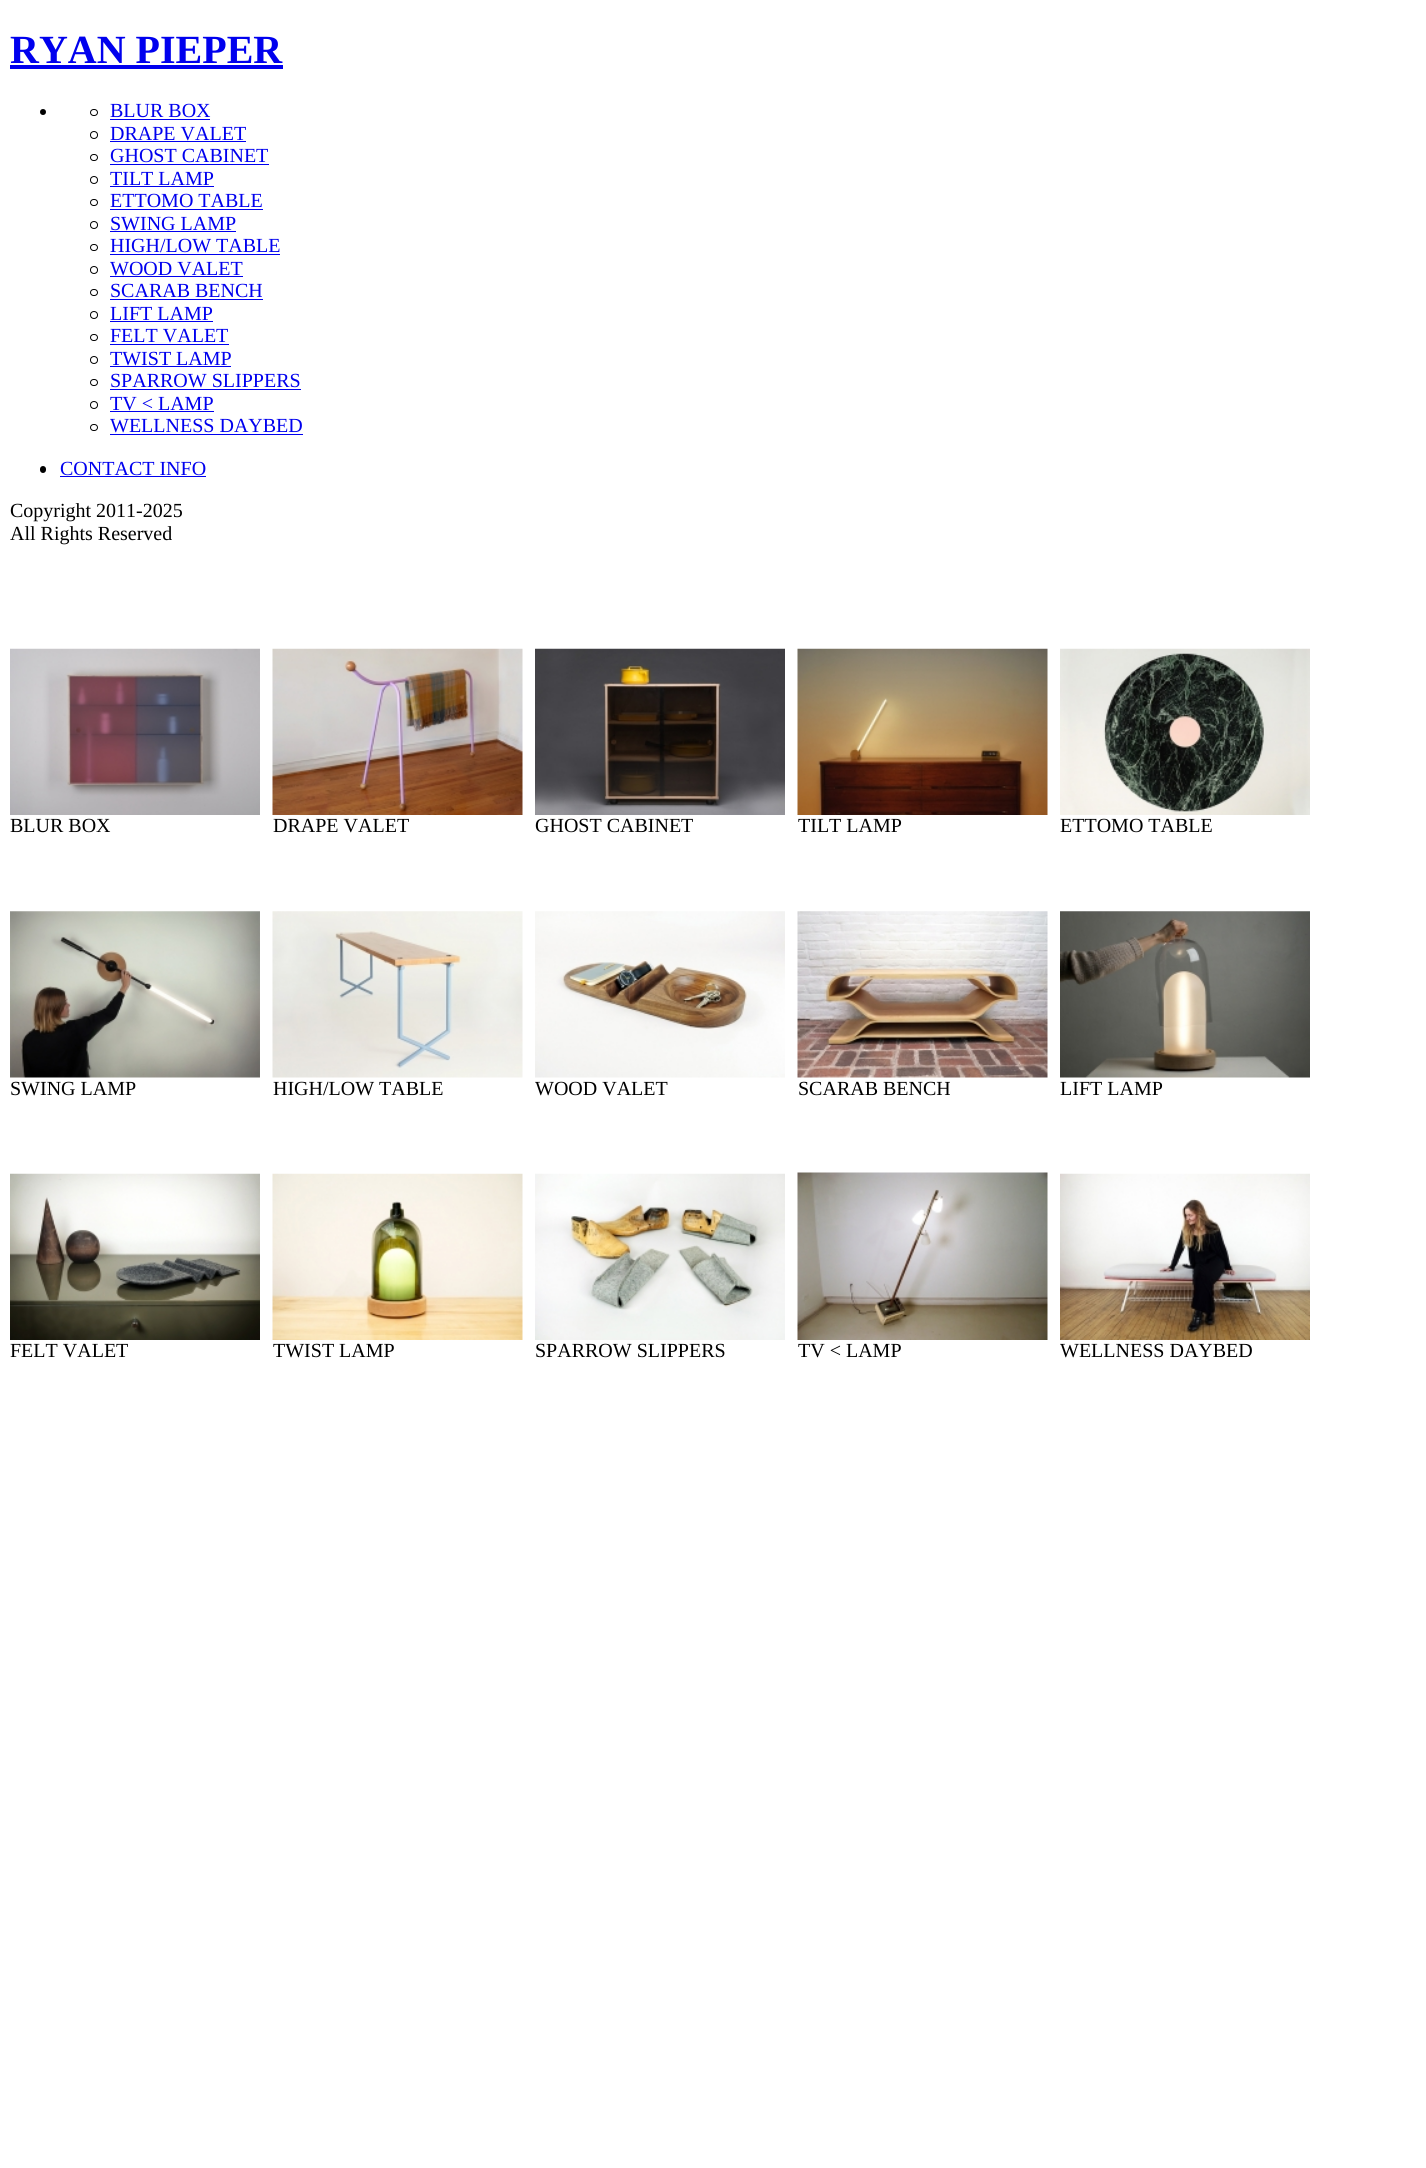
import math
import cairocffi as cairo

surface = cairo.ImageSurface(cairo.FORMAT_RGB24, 1426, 2168)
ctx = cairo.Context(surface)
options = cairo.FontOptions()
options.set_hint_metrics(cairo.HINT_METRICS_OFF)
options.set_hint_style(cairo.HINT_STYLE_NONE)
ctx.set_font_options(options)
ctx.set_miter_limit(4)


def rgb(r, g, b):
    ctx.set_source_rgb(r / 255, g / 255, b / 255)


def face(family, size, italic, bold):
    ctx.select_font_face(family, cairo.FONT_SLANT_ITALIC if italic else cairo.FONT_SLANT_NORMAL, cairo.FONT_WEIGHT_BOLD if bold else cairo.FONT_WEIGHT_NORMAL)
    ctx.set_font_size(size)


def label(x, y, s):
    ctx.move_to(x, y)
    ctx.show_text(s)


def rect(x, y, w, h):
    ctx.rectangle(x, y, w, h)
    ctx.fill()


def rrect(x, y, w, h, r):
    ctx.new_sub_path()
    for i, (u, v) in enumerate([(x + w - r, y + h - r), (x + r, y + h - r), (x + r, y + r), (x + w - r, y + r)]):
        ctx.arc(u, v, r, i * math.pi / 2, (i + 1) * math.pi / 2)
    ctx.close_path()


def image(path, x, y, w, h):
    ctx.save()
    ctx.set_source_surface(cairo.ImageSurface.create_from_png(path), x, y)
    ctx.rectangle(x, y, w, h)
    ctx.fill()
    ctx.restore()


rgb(255, 255, 255)
ctx.paint()
face('Liberation Serif', 40, 0, 1)
rgb(0, 0, 238)
label(10, 63, 'RYAN PIEPER')
rect(10, 65, 273, 4)
rgb(0, 0, 0)
ctx.new_path()
ctx.arc(43, 112, 3, 0, 2 * math.pi)
ctx.fill()
rrect(90.5, 109.5, 7, 6, 3)
ctx.set_line_width(1)
ctx.stroke()
face('Liberation Serif', 20, 0, 0)
rgb(0, 0, 238)
label(110, 117, 'BLUR BOX')
rect(110, 119, 100, 1)
ctx.new_path()
ctx.arc(94, 135, 3.5, 0, 2 * math.pi)
rgb(0, 0, 0)
ctx.stroke()
rgb(0, 0, 238)
label(110, 140, 'DRAPE VALET')
rect(110, 141, 136, 1)
rrect(90.5, 154.5, 7, 6, 3)
rgb(0, 0, 0)
ctx.stroke()
rgb(0, 0, 238)
label(110, 162, 'GHOST CABINET')
rect(110, 164, 159, 1)
ctx.new_path()
ctx.arc(94, 180, 3.5, 0, 2 * math.pi)
rgb(0, 0, 0)
ctx.stroke()
rgb(0, 0, 238)
label(110, 185, 'TILT LAMP')
rect(110, 186, 104, 1)
rrect(90.5, 199.5, 7, 6, 3)
rgb(0, 0, 0)
ctx.stroke()
rgb(0, 0, 238)
label(110, 207, 'ETTOMO TABLE')
rect(110, 209, 153, 1)
ctx.new_path()
ctx.arc(94, 225, 3.5, 0, 2 * math.pi)
rgb(0, 0, 0)
ctx.stroke()
rgb(0, 0, 238)
label(110, 230, 'SWING LAMP')
rect(110, 231, 126, 1)
rrect(90.5, 244.5, 7, 6, 3)
rgb(0, 0, 0)
ctx.stroke()
rgb(0, 0, 238)
label(110, 252, 'HIGH/LOW TABLE')
rect(110, 254, 170, 1)
ctx.new_path()
ctx.arc(94, 270, 3.5, 0, 2 * math.pi)
rgb(0, 0, 0)
ctx.stroke()
rgb(0, 0, 238)
label(110, 275, 'WOOD VALET')
rect(110, 276, 133, 1)
rrect(90.5, 289.5, 7, 6, 3)
rgb(0, 0, 0)
ctx.stroke()
rgb(0, 0, 238)
label(110, 297, 'SCARAB BENCH')
rect(110, 299, 153, 1)
ctx.new_path()
ctx.arc(94, 315, 3.5, 0, 2 * math.pi)
rgb(0, 0, 0)
ctx.stroke()
rgb(0, 0, 238)
label(110, 320, 'LIFT LAMP')
rect(110, 321, 103, 1)
rrect(90.5, 334.5, 7, 6, 3)
rgb(0, 0, 0)
ctx.stroke()
rgb(0, 0, 238)
label(110, 342, 'FELT VALET')
rect(110, 344, 119, 1)
ctx.new_path()
ctx.arc(94, 360, 3.5, 0, 2 * math.pi)
rgb(0, 0, 0)
ctx.stroke()
rgb(0, 0, 238)
label(110, 365, 'TWIST LAMP')
rect(110, 366, 121, 1)
rrect(90.5, 379.5, 7, 6, 3)
rgb(0, 0, 0)
ctx.stroke()
rgb(0, 0, 238)
label(110, 387, 'SPARROW SLIPPERS')
rect(110, 389, 191, 1)
ctx.new_path()
ctx.arc(94, 405, 3.5, 0, 2 * math.pi)
rgb(0, 0, 0)
ctx.stroke()
rgb(0, 0, 238)
label(110, 410, 'TV < LAMP')
rect(110, 411, 104, 1)
rrect(90.5, 424.5, 7, 6, 3)
rgb(0, 0, 0)
ctx.stroke()
rgb(0, 0, 238)
label(110, 432, 'WELLNESS DAYBED')
rect(110, 434, 193, 1)
rgb(0, 0, 0)
rrect(40, 466, 6, 7, 3)
ctx.fill()
rgb(0, 0, 238)
label(60, 475, 'CONTACT INFO')
rect(60, 476, 146, 1)
rgb(0, 0, 0)
label(10, 517, 'Copyright 2011-2025')
label(10, 540, 'All Rights Reserved')
image('image0.png', 10, 648, 250, 167)
label(10, 832, 'BLUR BOX')
image('image1.png', 272, 648, 251, 167)
label(273, 832, 'DRAPE VALET')
image('image2.png', 535, 648, 250, 167)
label(535, 832, 'GHOST CABINET')
image('image3.png', 797, 648, 251, 167)
label(798, 832, 'TILT LAMP')
image('image4.png', 1060, 648, 250, 167)
label(1060, 832, 'ETTOMO TABLE')
image('image5.png', 10, 911, 250, 167)
label(10, 1095, 'SWING LAMP')
image('image6.png', 272, 911, 251, 167)
label(273, 1095, 'HIGH/LOW TABLE')
image('image7.png', 535, 911, 250, 167)
label(535, 1095, 'WOOD VALET')
image('image8.png', 797, 911, 251, 167)
label(798, 1095, 'SCARAB BENCH')
image('image9.png', 1060, 911, 250, 167)
label(1060, 1095, 'LIFT LAMP')
image('image10.png', 10, 1173, 250, 167)
label(10, 1357, 'FELT VALET')
image('image11.png', 272, 1173, 251, 167)
label(273, 1357, 'TWIST LAMP')
image('image12.png', 535, 1173, 250, 167)
label(535, 1357, 'SPARROW SLIPPERS')
image('image13.png', 797, 1172, 251, 168)
label(798, 1357, 'TV < LAMP')
image('image14.png', 1060, 1173, 250, 167)
label(1060, 1357, 'WELLNESS DAYBED')
surface.write_to_png('render.png')
